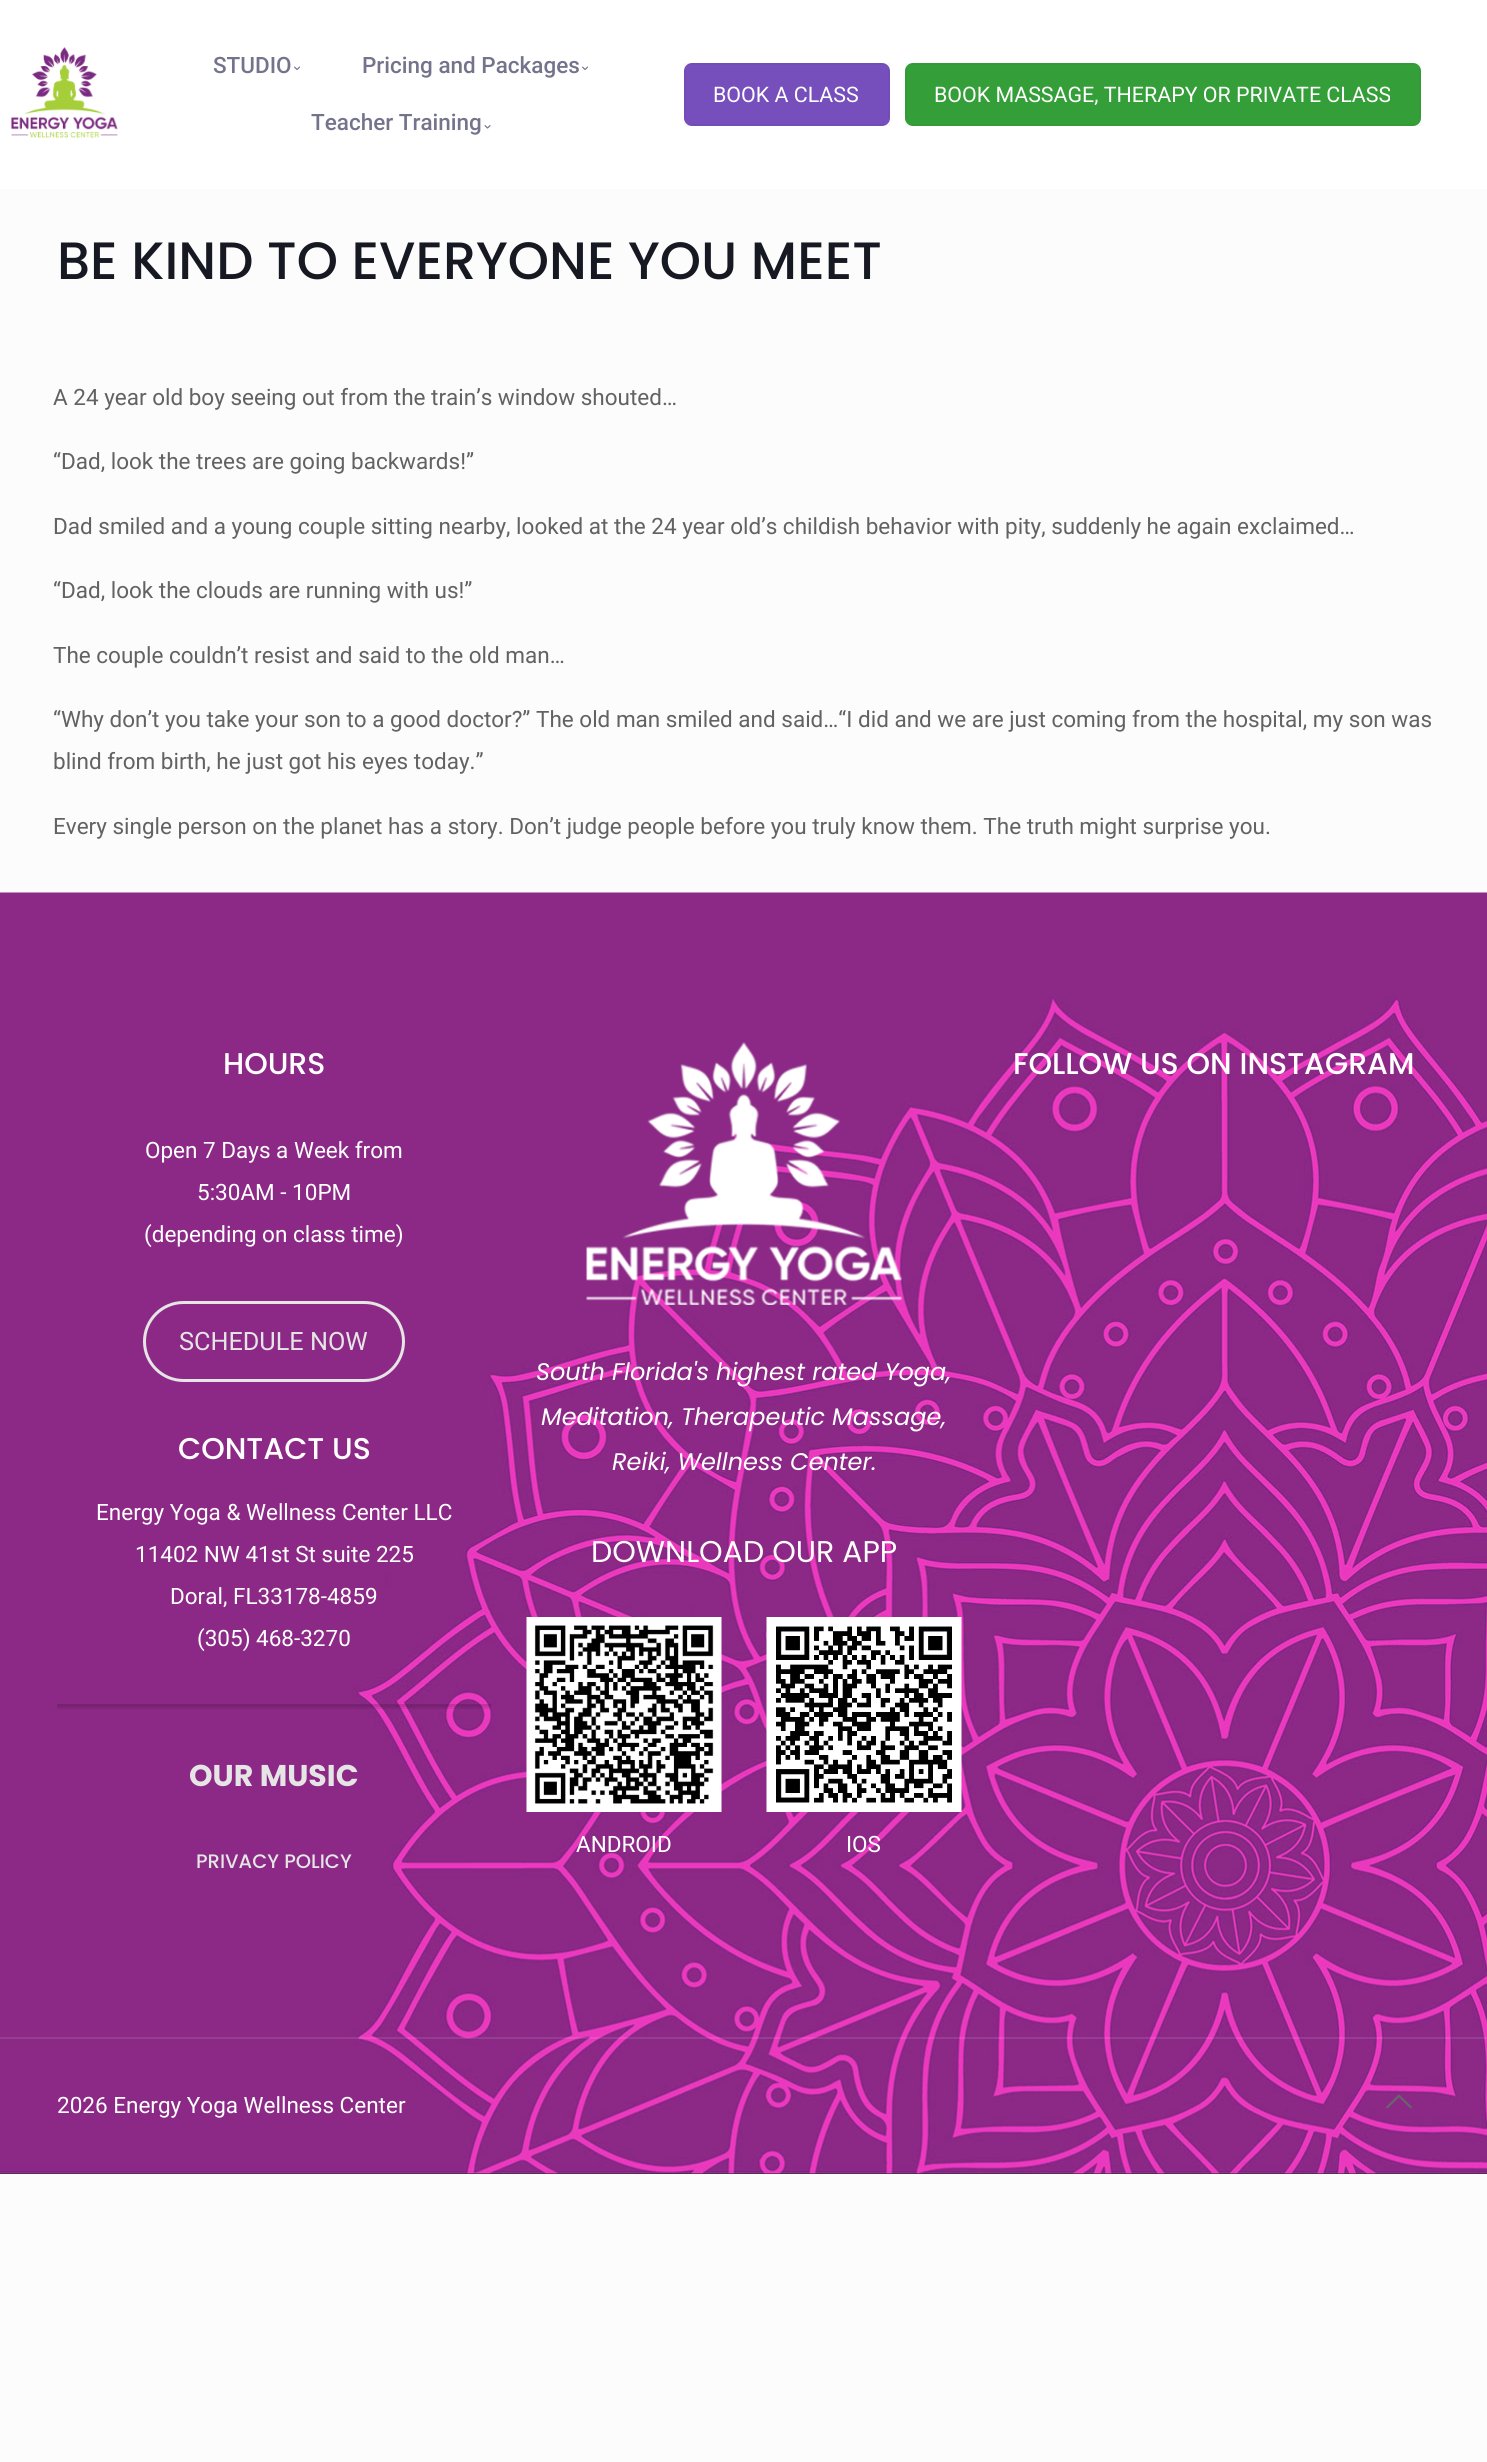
import math
import cairocffi as cairo

surface = cairo.ImageSurface(cairo.FORMAT_RGB24, 1487, 2462)
ctx = cairo.Context(surface)
options = cairo.FontOptions()
options.set_hint_metrics(cairo.HINT_METRICS_OFF)
options.set_hint_style(cairo.HINT_STYLE_NONE)
ctx.set_font_options(options)
ctx.set_miter_limit(4)


def rgb(r, g, b):
    ctx.set_source_rgb(r / 255, g / 255, b / 255)


def face(family, size, italic, bold):
    ctx.select_font_face(family, cairo.FONT_SLANT_ITALIC if italic else cairo.FONT_SLANT_NORMAL, cairo.FONT_WEIGHT_BOLD if bold else cairo.FONT_WEIGHT_NORMAL)
    ctx.set_font_size(size)


def label(x, y, s):
    ctx.move_to(x, y)
    ctx.show_text(s)


def rect(x, y, w, h):
    ctx.rectangle(x, y, w, h)
    ctx.fill()


def rrect(x, y, w, h, r):
    ctx.new_sub_path()
    for i, (u, v) in enumerate([(x + w - r, y + h - r), (x + r, y + h - r), (x + r, y + r), (x + w - r, y + r)]):
        ctx.arc(u, v, r, i * math.pi / 2, (i + 1) * math.pi / 2)
    ctx.close_path()


def image(path, x, y, w, h):
    ctx.save()
    ctx.set_source_surface(cairo.ImageSurface.create_from_png(path), x, y)
    ctx.rectangle(x, y, w, h)
    ctx.fill()
    ctx.restore()


rgb(252, 252, 252)
ctx.paint()
rgb(255, 255, 255)
rect(0, 0, 1487, 189)
image('image0.png', 10, 47, 108, 92)
face('Roboto Medium', 22.5, 0, 0)
rgb(115, 116, 140)
label(213, 73, 'STUDIO')
image('image1.png', 294, 66, 6, 4)
label(362, 73, 'Pricing and Packages')
image('image1.png', 582, 66, 6, 4)
label(311, 130, 'Teacher Training')
image('image2.png', 484, 125, 7, 4)
rgb(118, 79, 188)
rrect(684, 63, 206, 63, 8)
ctx.fill()
ctx.rectangle(685, 64, 204, 61)
ctx.set_source_rgba(0, 0, 0, 0.03)
ctx.stroke()
face('Roboto', 21.4, 0, 0)
rgb(255, 255, 255)
label(713, 102, 'BOOK A CLASS')
rgb(52, 158, 56)
rrect(905, 63, 516, 63, 8)
ctx.fill()
ctx.rectangle(906, 64, 514, 61)
ctx.set_source_rgba(0, 0, 0, 0.03)
ctx.stroke()
rgb(255, 255, 255)
label(934, 102, 'BOOK MASSAGE, THERAPY OR PRIVATE CLASS')
face('Poppins Medium', 52.5, 0, 0)
rgb(22, 25, 34)
label(57, 279, 'BE KIND TO EVERYONE YOU MEET')
face('Roboto', 22.5, 0, 0)
rgb(98, 98, 98)
label(53, 405, 'A 24 year old boy seeing out from the train’s window shouted…')
label(53, 469, '“Dad, look the trees are going backwards!”')
label(53, 534, 'Dad smiled and a young couple sitting nearby, looked at the 24 year old’s childish behavior with pity, suddenly he again exclaimed…')
label(53, 598, '“Dad, look the clouds are running with us!”')
label(53, 663, 'The couple couldn’t resist and said to the old man…')
label(53, 727, '“Why don’t you take your son to a good doctor?” The old man smiled and said…“I did and we are just coming from the hospital, my son was')
label(53, 769, 'blind from birth, he just got his eyes today.”')
label(53, 834, 'Every single person on the planet has a story. Don’t judge people before you truly know them. The truth might surprise you.')
rgb(16, 16, 21)
rect(0, 2173, 1487, 1)
image('image3.png', 0, 892, 1487, 1282)
face('Poppins Medium', 30, 0, 0)
rgb(255, 255, 255)
label(223, 1074, 'HOURS')
face('Roboto', 22.5, 0, 0)
label(145, 1158, 'Open 7 Days a Week from')
label(197, 1200, '5:30AM - 10PM')
label(144, 1242, '(depending on class time)')
rrect(144.5, 1302.5, 259, 78, 39)
rgb(229, 229, 229)
ctx.set_line_width(3)
ctx.stroke()
face('Roboto', 25.25, 0, 0)
label(179, 1350, 'SCHEDULE NOW')
face('Poppins Medium', 30, 0, 0)
rgb(255, 255, 255)
label(178, 1459, 'CONTACT US')
face('Roboto', 22.5, 0, 0)
label(96, 1520, 'Energy Yoga & Wellness Center LLC')
label(135, 1562, '11402 NW 41st St suite 225')
label(170, 1604, 'Doral, FL33178-4859')
label(197, 1646, '(305) 468-3270')
ctx.set_source_rgba(0, 0, 0, 0.08)
rect(57, 1704, 434, 5)
rect(57, 1704, 434, 3)
face('Poppins', 30, 0, 1)
rgb(229, 229, 229)
label(189, 1786, 'OUR MUSIC')
face('Poppins Medium', 19.5, 0, 0)
label(196, 1868, 'PRIVACY POLICY')
face('Poppins Medium', 30, 0, 0)
rgb(255, 255, 255)
label(1013, 1074, 'FOLLOW US ON INSTAGRAM')
image('image4.png', 586, 1042, 316, 263)
face('Poppins', 24, 1, 0)
label(536, 1380, 'South Florida\'s highest rated Yoga,')
label(541, 1425, 'Meditation, Therapeutic Massage,')
label(612, 1470, 'Reiki, Wellness Center.')
face('Poppins', 30, 0, 0)
label(591, 1562, 'DOWNLOAD OUR APP')
image('image5.png', 526, 1617, 196, 195)
face('Roboto', 22.5, 0, 0)
label(576, 1852, 'ANDROID')
image('image6.png', 766, 1617, 196, 195)
label(846, 1852, 'IOS')
ctx.set_source_rgba(1, 1, 1, 0.1)
rect(0, 2037, 1487, 2)
rgb(255, 255, 255)
label(57, 2113, '2026 Energy Yoga Wellness Center')
image('image7.png', 1386, 2094, 26, 15)
surface.write_to_png('render.png')
